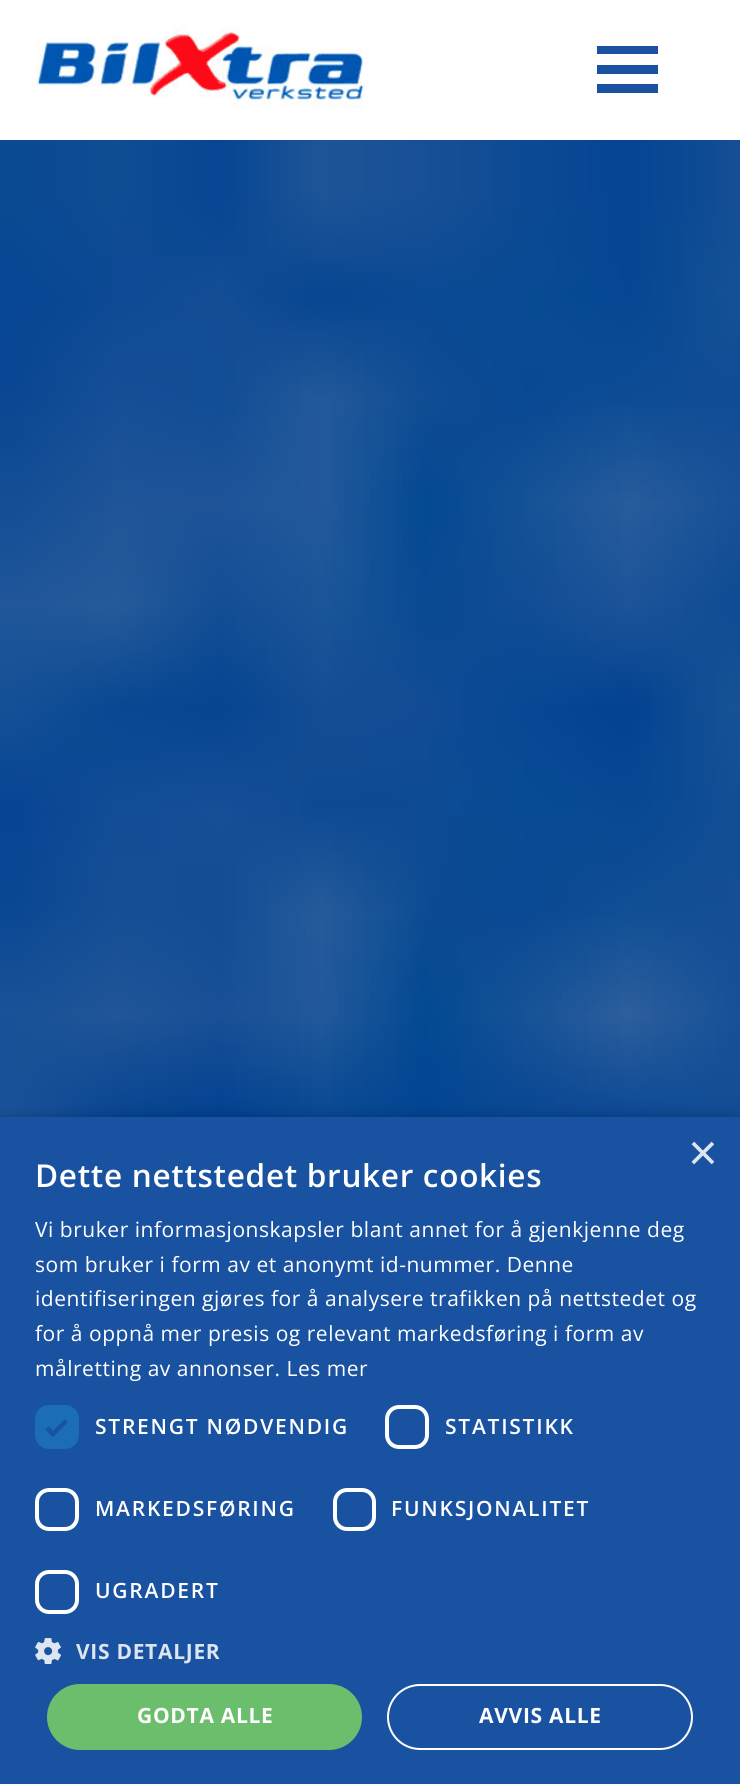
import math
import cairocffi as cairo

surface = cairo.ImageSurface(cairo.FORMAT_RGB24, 740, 1784)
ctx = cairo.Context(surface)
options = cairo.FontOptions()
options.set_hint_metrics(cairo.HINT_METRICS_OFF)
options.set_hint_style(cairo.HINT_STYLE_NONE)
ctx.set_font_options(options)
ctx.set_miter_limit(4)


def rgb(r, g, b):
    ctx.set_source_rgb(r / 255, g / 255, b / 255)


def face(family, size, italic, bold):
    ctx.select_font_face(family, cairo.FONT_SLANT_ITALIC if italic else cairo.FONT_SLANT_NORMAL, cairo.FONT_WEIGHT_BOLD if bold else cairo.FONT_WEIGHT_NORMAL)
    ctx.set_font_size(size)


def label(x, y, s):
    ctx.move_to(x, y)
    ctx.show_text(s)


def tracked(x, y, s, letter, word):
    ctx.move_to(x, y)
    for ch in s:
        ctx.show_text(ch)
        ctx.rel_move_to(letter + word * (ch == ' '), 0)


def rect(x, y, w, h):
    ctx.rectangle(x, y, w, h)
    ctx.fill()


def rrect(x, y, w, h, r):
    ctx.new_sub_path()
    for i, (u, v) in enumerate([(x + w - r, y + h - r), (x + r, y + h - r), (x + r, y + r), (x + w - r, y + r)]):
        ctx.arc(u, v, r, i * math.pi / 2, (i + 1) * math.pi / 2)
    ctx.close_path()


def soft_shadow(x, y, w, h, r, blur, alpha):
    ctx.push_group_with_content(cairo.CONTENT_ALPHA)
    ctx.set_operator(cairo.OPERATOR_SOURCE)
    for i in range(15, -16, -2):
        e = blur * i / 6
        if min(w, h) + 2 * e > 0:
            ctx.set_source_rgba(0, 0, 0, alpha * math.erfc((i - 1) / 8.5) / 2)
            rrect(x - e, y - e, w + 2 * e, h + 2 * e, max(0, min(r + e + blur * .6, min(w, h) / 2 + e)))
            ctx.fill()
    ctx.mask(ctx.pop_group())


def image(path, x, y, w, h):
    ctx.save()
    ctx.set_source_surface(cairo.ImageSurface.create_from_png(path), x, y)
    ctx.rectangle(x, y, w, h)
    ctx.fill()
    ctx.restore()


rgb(255, 255, 255)
ctx.paint()
image('image0.png', 35, 26, 335, 82)
rgb(26, 81, 160)
rect(597, 46, 61, 8)
rect(597, 65, 61, 9)
rect(597, 84, 61, 9)
image('image1.png', 0, 140, 740, 977)
rgb(0, 0, 0)
soft_shadow(2, 1120, 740, 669, 0, 7, 0.35)
rgb(25, 82, 160)
rect(0, 1117, 740, 667)
face('Liberation Sans', 51, 0, 0)
rgb(221, 229, 241)
label(688, 1170, '×')
face('Open Sans SemiBold', 31.5, 0, 0)
rgb(255, 255, 255)
tracked(35, 1187, 'Dette nettstedet bruker cookies', 0.7, 0)
face('Open Sans', 21, 0, 0)
tracked(35, 1237, 'Vi bruker informasjonskapsler blant annet for å gjenkjenne deg', 0.53, 0)
tracked(35, 1272, 'som bruker i form av et anonymt id-nummer. Denne', 0.53, 0)
tracked(35, 1306, 'identifiseringen gjøres for å analysere trafikken på nettstedet og', 0.53, 0)
tracked(35, 1341, 'for å oppnå mer presis og relevant markedsføring i form av', 0.53, 0)
tracked(35, 1376, 'målretting av annonser. Les mer', 0.53, 0)
rgb(27, 109, 181)
rrect(35, 1405, 44, 44, 14)
ctx.fill()
ctx.new_path()
ctx.move_to(47, 1428)
ctx.line_to(53, 1434)
ctx.line_to(66.5, 1420.5)
rgb(25, 82, 160)
ctx.set_line_width(4.6)
ctx.stroke()
face('Open Sans SemiBold', 21, 0, 0)
rgb(255, 255, 255)
tracked(95, 1434, 'STRENGT NØDVENDIG', 1.75, 0)
rrect(387, 1407, 40, 40, 12)
ctx.set_line_width(4)
ctx.stroke()
tracked(445, 1434, 'STATISTIKK', 1.75, 0)
rrect(37, 1490, 40, 39, 12)
ctx.stroke()
tracked(95, 1516, 'MARKEDSFØRING', 1.75, 0)
rrect(335, 1490, 39, 39, 12)
ctx.stroke()
tracked(391, 1516, 'FUNKSJONALITET', 1.75, 0)
rrect(37, 1572, 40, 40, 12)
ctx.stroke()
tracked(95, 1598, 'UGRADERT', 1.75, 0)
image('image2.png', 35, 1638, 26, 26)
face('Open Sans', 21, 0, 1)
rgb(221, 229, 241)
tracked(76, 1659, 'VIS DETALJER', 0.7, 0)
rgb(107, 190, 107)
rrect(47, 1684, 315, 66, 33)
ctx.fill()
rgb(255, 255, 255)
tracked(137, 1723, 'GODTA ALLE', 0.7, 0)
rrect(388, 1685, 304, 64, 32)
ctx.set_line_width(2)
ctx.stroke()
tracked(479, 1723, 'AVVIS ALLE', 0.7, 0)
surface.write_to_png('render.png')
